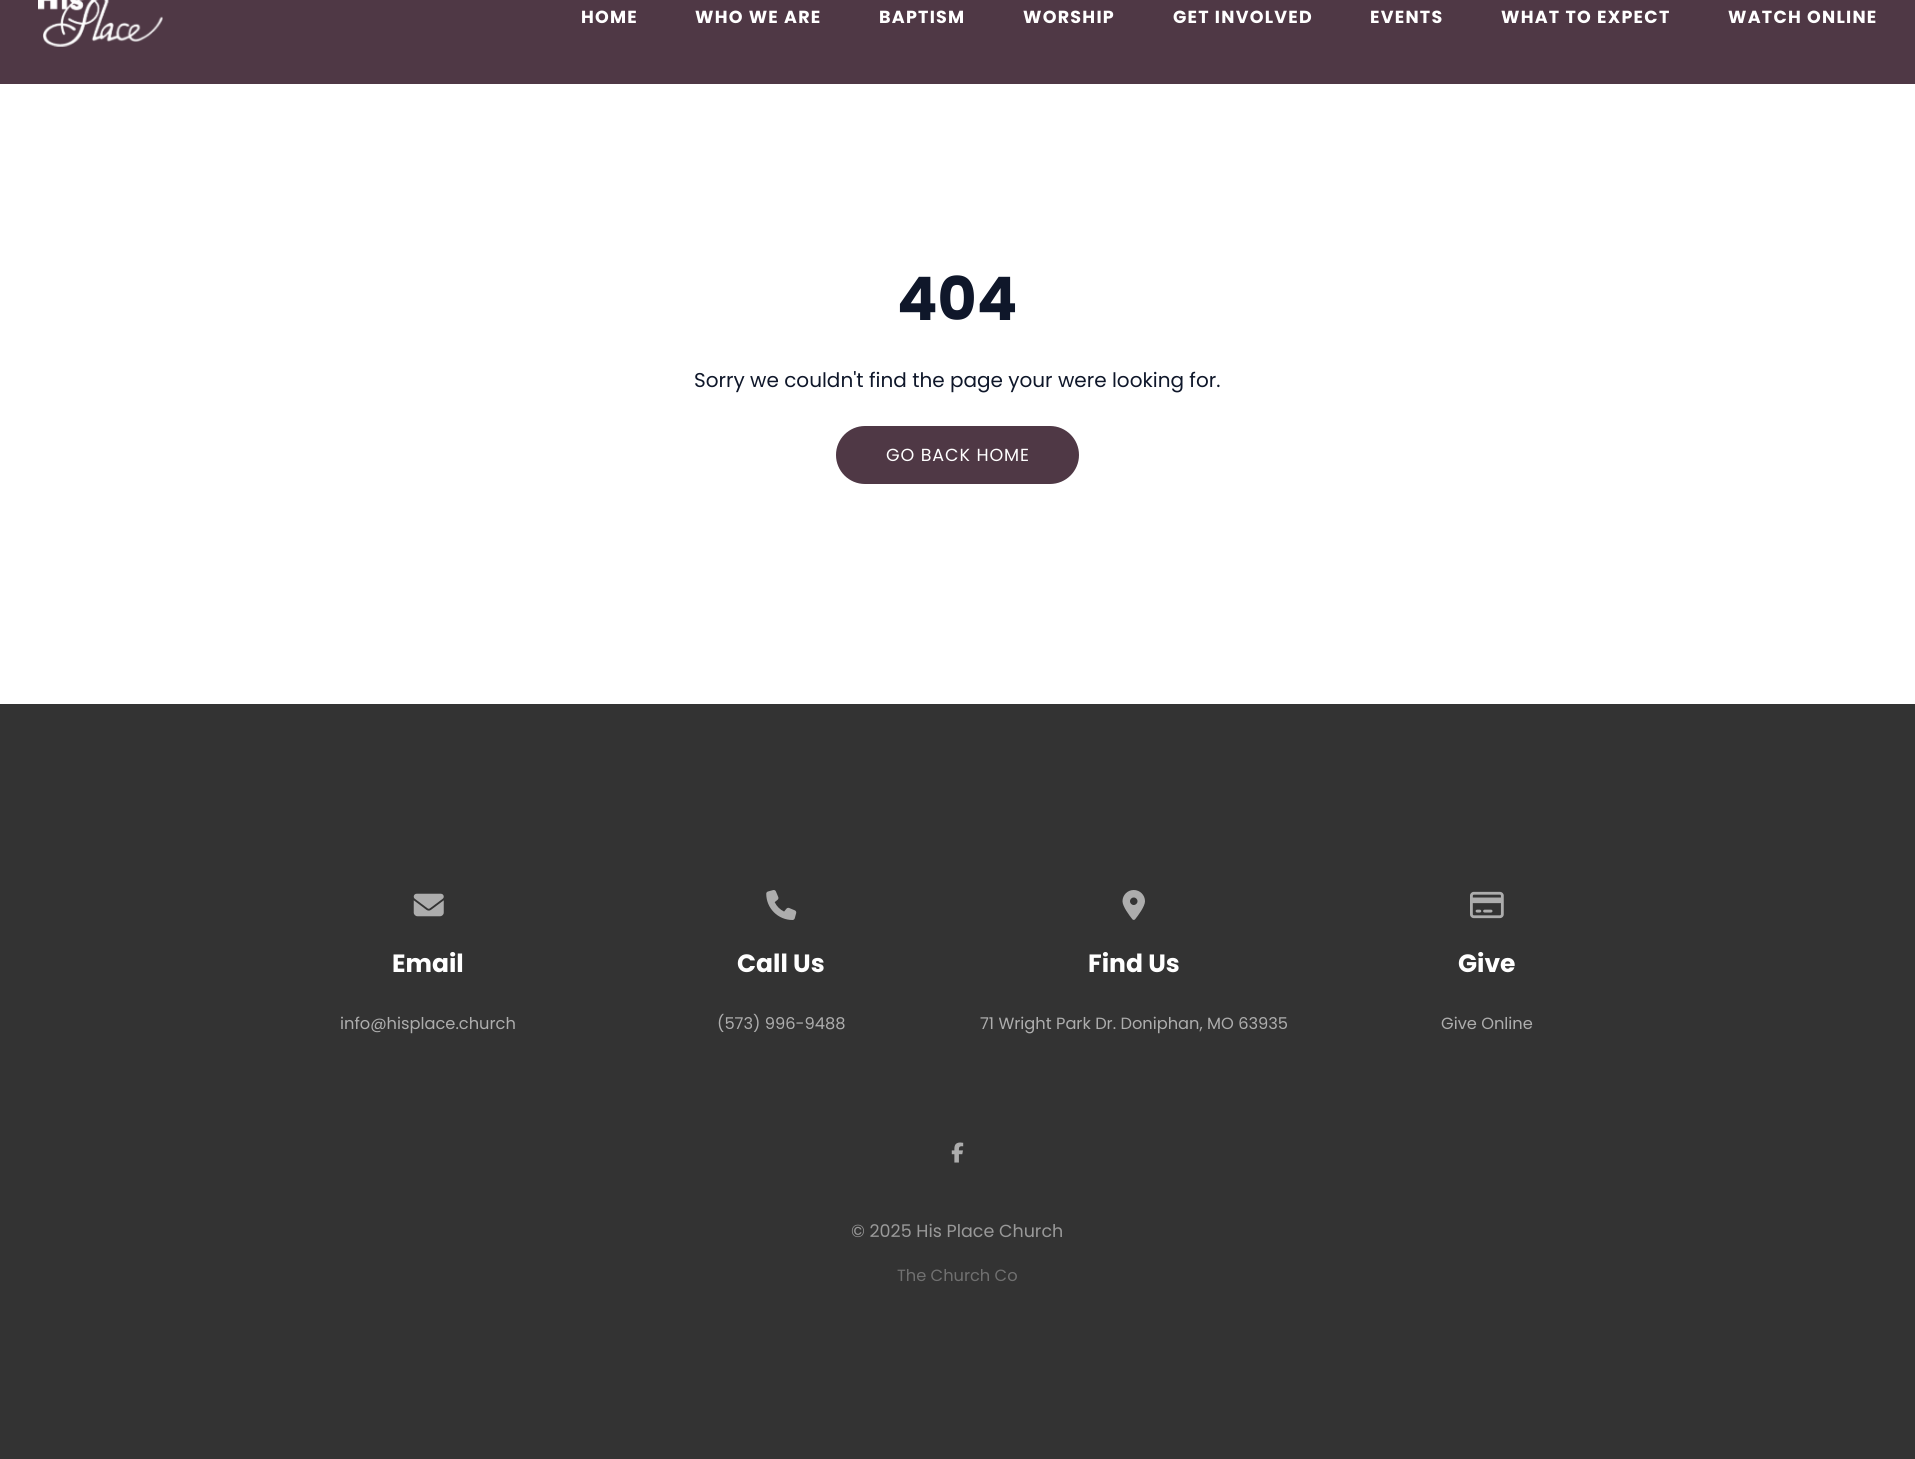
import math
import cairocffi as cairo

surface = cairo.ImageSurface(cairo.FORMAT_RGB24, 1915, 1459)
ctx = cairo.Context(surface)
options = cairo.FontOptions()
options.set_hint_metrics(cairo.HINT_METRICS_OFF)
options.set_hint_style(cairo.HINT_STYLE_NONE)
ctx.set_font_options(options)
ctx.set_miter_limit(4)


def rgb(r, g, b):
    ctx.set_source_rgb(r / 255, g / 255, b / 255)


def face(family, size, italic, bold):
    ctx.select_font_face(family, cairo.FONT_SLANT_ITALIC if italic else cairo.FONT_SLANT_NORMAL, cairo.FONT_WEIGHT_BOLD if bold else cairo.FONT_WEIGHT_NORMAL)
    ctx.set_font_size(size)


def label(x, y, s):
    ctx.move_to(x, y)
    ctx.show_text(s)


def tracked(x, y, s, letter, word):
    ctx.move_to(x, y)
    for ch in s:
        ctx.show_text(ch)
        ctx.rel_move_to(letter + word * (ch == ' '), 0)


def rect(x, y, w, h):
    ctx.rectangle(x, y, w, h)
    ctx.fill()


def rrect(x, y, w, h, r):
    ctx.new_sub_path()
    for i, (u, v) in enumerate([(x + w - r, y + h - r), (x + r, y + h - r), (x + r, y + r), (x + w - r, y + r)]):
        ctx.arc(u, v, r, i * math.pi / 2, (i + 1) * math.pi / 2)
    ctx.close_path()


def image(path, x, y, w, h):
    ctx.save()
    ctx.set_source_surface(cairo.ImageSurface.create_from_png(path), x, y)
    ctx.rectangle(x, y, w, h)
    ctx.fill()
    ctx.restore()


rgb(255, 255, 255)
ctx.paint()
rgb(79, 56, 69)
rect(0, 0, 1915, 84)
image('image0.png', 38, 0, 125, 47)
face('Poppins', 17.5, 0, 1)
rgb(255, 255, 255)
tracked(581, 23, 'HOME', 1.25, 0)
tracked(695, 23, 'WHO WE ARE', 1.25, 0)
tracked(879, 23, 'BAPTISM', 1.25, 0)
tracked(1023, 23, 'WORSHIP', 1.25, 0)
tracked(1173, 23, 'GET INVOLVED', 1.25, 0)
tracked(1370, 23, 'EVENTS', 1.25, 0)
tracked(1501, 23, 'WHAT TO EXPECT', 1.25, 0)
tracked(1728, 23, 'WATCH ONLINE', 1.25, 0)
face('Poppins', 60, 0, 1)
rgb(15, 23, 42)
label(897, 320, '404')
face('Poppins', 20, 0, 0)
label(694, 387, 'Sorry we couldn\'t find the page your were looking for.')
rgb(79, 56, 69)
rrect(836, 426, 243, 58, 29)
ctx.fill()
face('Poppins', 17.5, 0, 0)
rgb(255, 255, 255)
tracked(886, 461, 'GO BACK HOME', 0.9, 0)
rgb(51, 51, 51)
rect(0, 704, 1915, 755)
image('image1.png', 413, 893, 31, 24)
face('Poppins', 25, 0, 1)
rgb(255, 255, 255)
label(392, 972, 'Email')
face('Poppins', 16.25, 0, 0)
rgb(173, 173, 173)
label(340, 1029, 'info@hisplace.church')
image('image2.png', 766, 890, 31, 30)
face('Poppins', 25, 0, 1)
rgb(255, 255, 255)
label(737, 972, 'Call Us')
face('Poppins', 16.25, 0, 0)
rgb(173, 173, 173)
label(717, 1029, '(573) 996-9488')
image('image3.png', 1122, 890, 23, 30)
face('Poppins', 25, 0, 1)
rgb(255, 255, 255)
label(1088, 972, 'Find Us')
face('Poppins', 16.25, 0, 0)
rgb(173, 173, 173)
label(980, 1029, '71 Wright Park Dr. Doniphan, MO 63935')
image('image4.png', 1470, 891, 34, 28)
face('Poppins', 25, 0, 1)
rgb(255, 255, 255)
label(1458, 972, 'Give')
face('Poppins', 16.25, 0, 0)
rgb(173, 173, 173)
label(1441, 1029, 'Give Online')
image('image5.png', 951, 1142, 13, 21)
face('Poppins', 17.5, 0, 0)
rgb(153, 153, 153)
label(851, 1237, '© 2025 His Place Church')
face('Poppins', 16.25, 0, 0)
rgb(112, 112, 112)
label(897, 1281, 'The Church Co')
surface.write_to_png('render.png')
